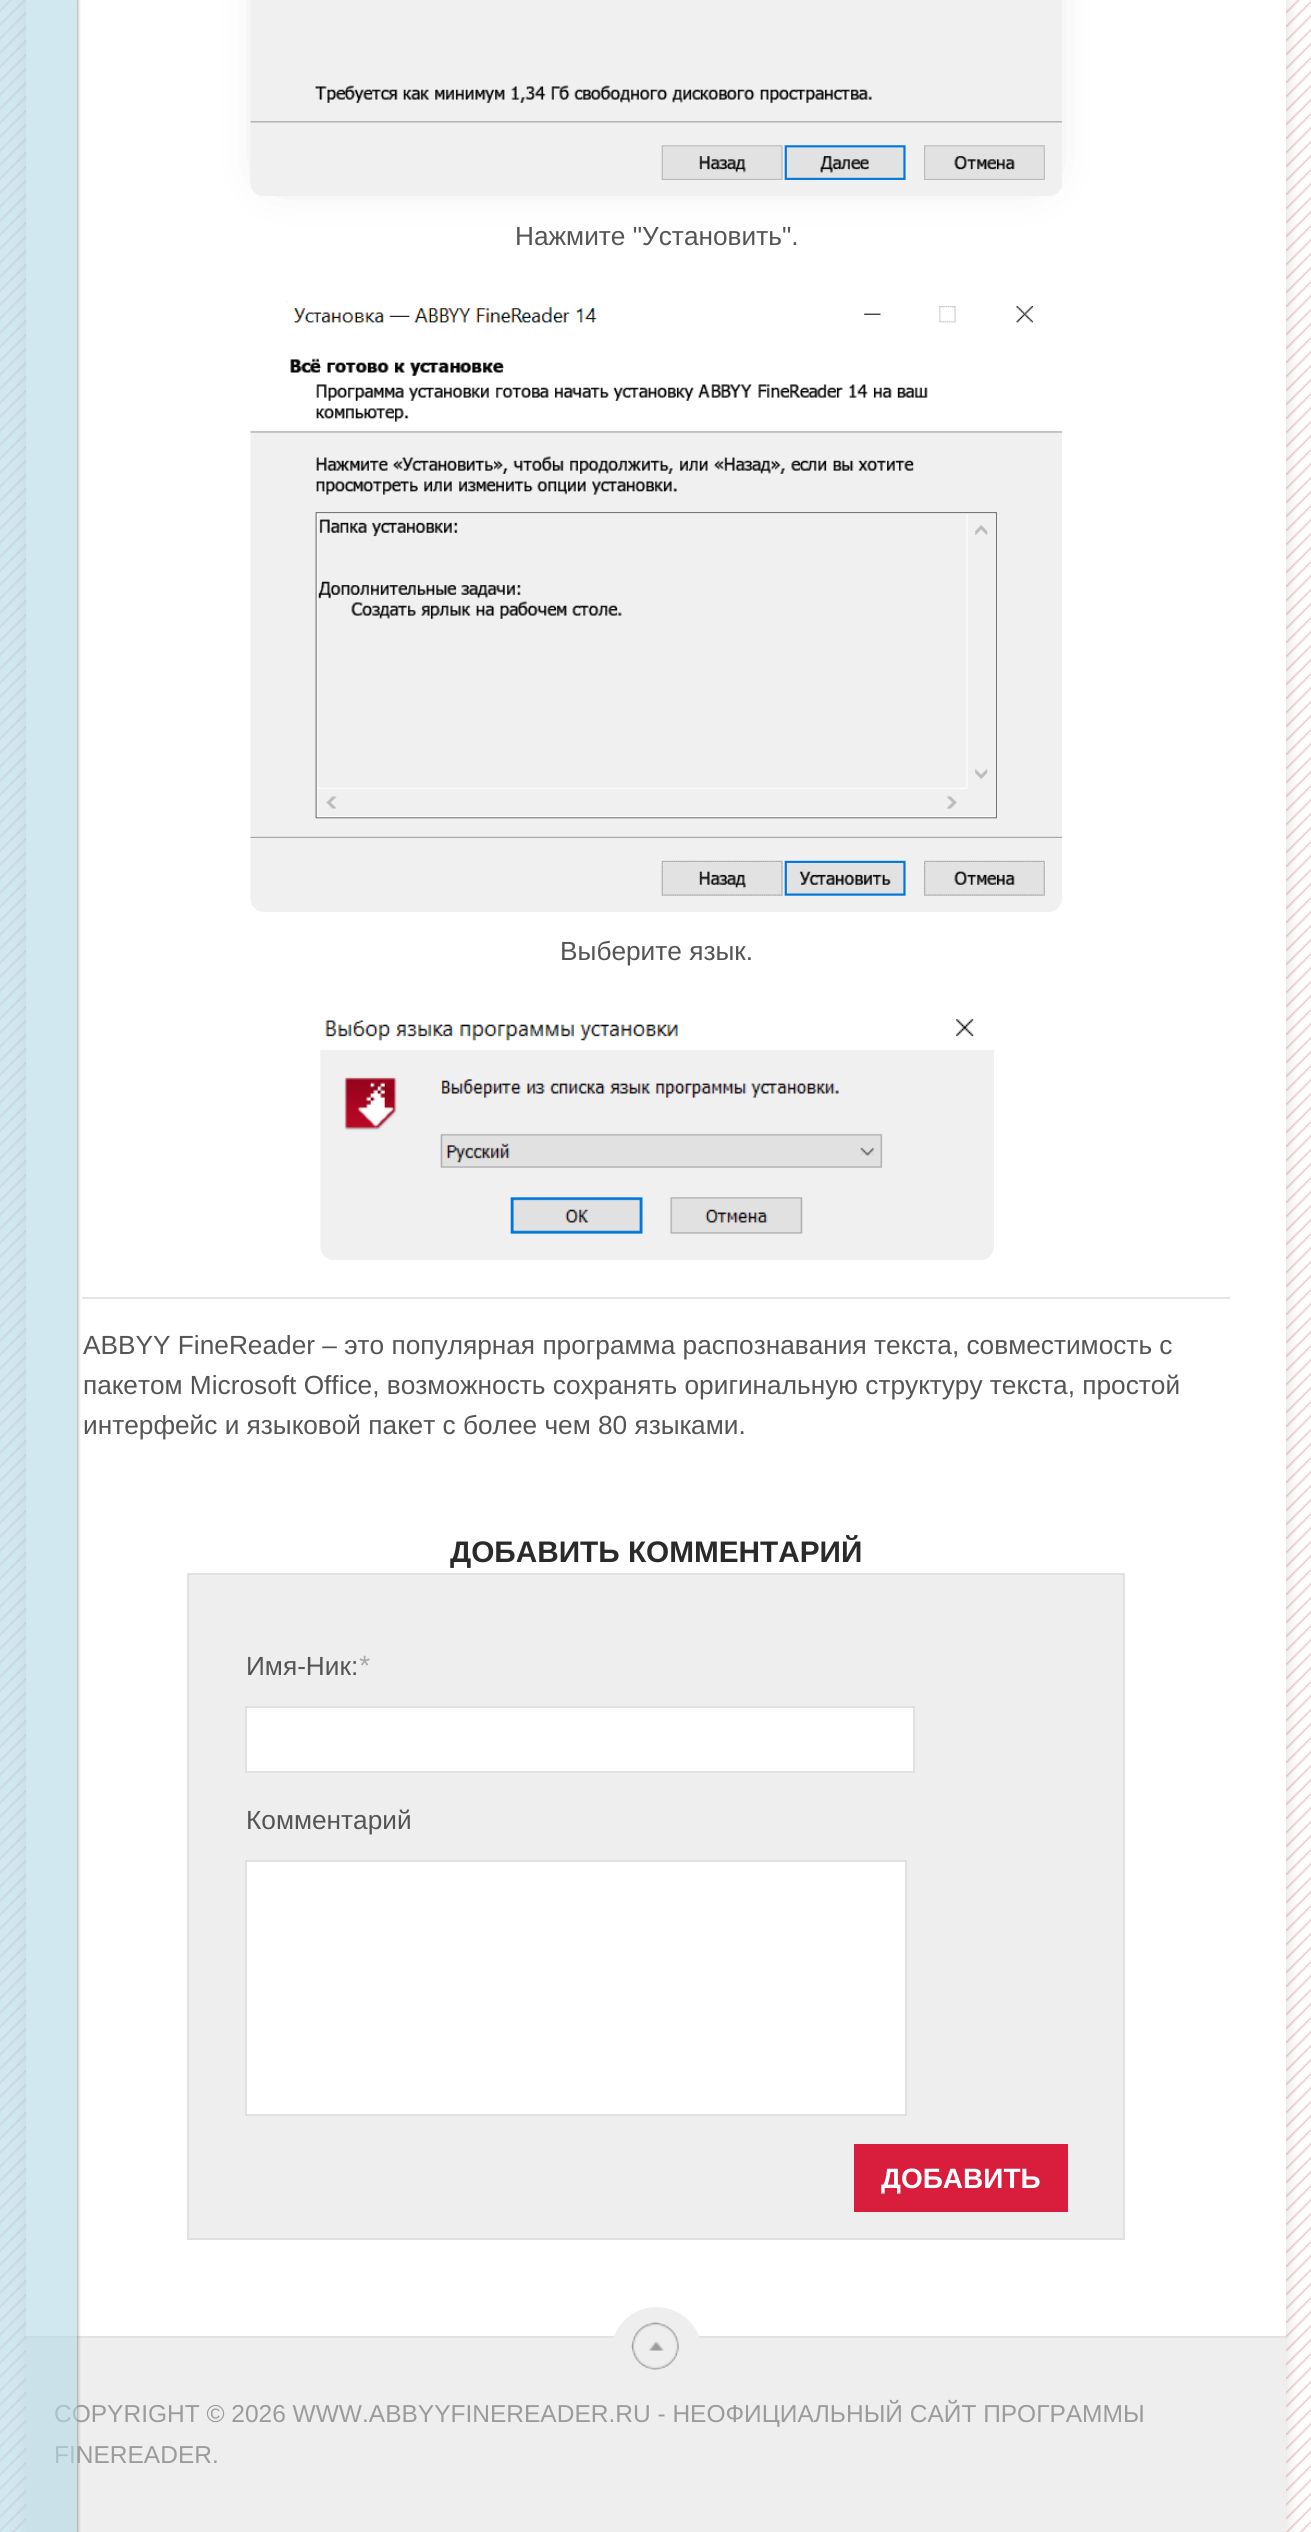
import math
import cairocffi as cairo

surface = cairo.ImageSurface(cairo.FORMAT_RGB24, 1311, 2532)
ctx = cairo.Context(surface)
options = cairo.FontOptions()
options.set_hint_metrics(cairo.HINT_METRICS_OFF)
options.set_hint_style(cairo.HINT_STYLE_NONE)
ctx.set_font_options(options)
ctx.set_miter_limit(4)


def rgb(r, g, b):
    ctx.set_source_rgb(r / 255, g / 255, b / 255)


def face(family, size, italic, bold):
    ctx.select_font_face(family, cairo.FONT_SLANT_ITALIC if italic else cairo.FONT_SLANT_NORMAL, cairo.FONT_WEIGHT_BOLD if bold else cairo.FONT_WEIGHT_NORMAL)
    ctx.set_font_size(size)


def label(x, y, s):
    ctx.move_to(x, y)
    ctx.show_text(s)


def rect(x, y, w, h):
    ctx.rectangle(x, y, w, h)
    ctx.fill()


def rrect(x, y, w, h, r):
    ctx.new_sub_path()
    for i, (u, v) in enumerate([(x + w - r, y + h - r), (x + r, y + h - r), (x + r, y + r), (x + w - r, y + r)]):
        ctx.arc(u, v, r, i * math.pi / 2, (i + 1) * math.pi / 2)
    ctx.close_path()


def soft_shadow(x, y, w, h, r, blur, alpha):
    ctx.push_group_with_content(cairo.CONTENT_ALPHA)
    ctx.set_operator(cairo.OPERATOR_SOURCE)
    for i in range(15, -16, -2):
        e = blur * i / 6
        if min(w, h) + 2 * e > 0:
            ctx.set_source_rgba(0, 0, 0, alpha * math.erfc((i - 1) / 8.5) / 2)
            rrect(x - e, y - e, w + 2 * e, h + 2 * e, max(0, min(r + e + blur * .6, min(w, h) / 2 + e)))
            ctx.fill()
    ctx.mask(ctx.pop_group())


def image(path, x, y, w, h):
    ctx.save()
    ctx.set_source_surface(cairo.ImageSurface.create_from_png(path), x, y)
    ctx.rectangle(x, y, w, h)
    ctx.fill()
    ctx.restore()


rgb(255, 255, 255)
ctx.paint()
image('image0.png', 0, 0, 1311, 2532)
rgb(50, 50, 50)
soft_shadow(26, -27, 1260, 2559, 0, 9, 0.17)
rgb(255, 255, 255)
rect(26, 0, 1260, 2336)
rgb(229, 229, 229)
rect(82, 1297, 1148, 2)
rgb(238, 238, 238)
rect(26, 2338, 1260, 194)
rgb(226, 226, 226)
rect(26, 2336, 1260, 2)
ctx.save()
ctx.rectangle(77, 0, 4, 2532)
ctx.clip()
rgb(77, 59, 59)
soft_shadow(0, 0, 77, 2532, 0, 2, 0.76)
ctx.restore()
face('Liberation Sans', 24.5, 0, 0)
rgb(155, 155, 155)
label(54, 2422, 'COPYRIGHT © 2026 WWW.ABBYYFINEREADER.RU - НЕОФИЦИАЛЬНЫЙ САЙТ ПРОГРАММЫ')
label(54, 2463, 'FINEREADER.')
ctx.set_source_rgba(0.714, 0.855, 0.906, 0.61)
rect(0, 0, 77, 2532)
rgb(0, 0, 0)
soft_shadow(277, -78, 759, 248, 0, 26, 0.2)
image('image1.png', 250, 0, 813, 196)
face('Liberation Sans', 26.25, 0, 0)
rgb(85, 85, 85)
label(515, 245, 'Нажмите "Установить".')
image('image2.png', 250, 300, 813, 612)
label(560, 960, 'Выберите язык.')
image('image3.png', 320, 1019, 674, 241)
label(83, 1354, 'ABBYY FineReader – это популярная программа распознавания текста, совместимость с')
label(83, 1394, 'пакетом Microsoft Office, возможность сохранять оригинальную структуру текста, простой')
label(83, 1434, 'интерфейс и языковой пакет с более чем 80 языками.')
face('Liberation Sans', 29.75, 0, 1)
rgb(42, 42, 42)
label(450, 1562, 'ДОБАВИТЬ КОММЕНТАРИЙ')
rgb(238, 238, 238)
ctx.rectangle(188, 1574, 936, 665)
ctx.fill_preserve()
rgb(225, 225, 225)
ctx.stroke()
face('Liberation Sans', 26.25, 0, 0)
rgb(85, 85, 85)
label(246, 1675, 'Имя-Ник:')
face('Liberation Sans', 28, 1, 0)
rgb(168, 168, 168)
label(358, 1675, '*')
rgb(255, 255, 255)
ctx.rectangle(246, 1707, 668, 65)
ctx.fill_preserve()
rgb(225, 225, 225)
ctx.stroke()
face('Liberation Sans', 26.25, 0, 0)
rgb(85, 85, 85)
label(246, 1829, 'Комментарий')
rgb(255, 255, 255)
ctx.rectangle(246, 1861, 660, 254)
ctx.fill_preserve()
rgb(225, 225, 225)
ctx.stroke()
rgb(217, 29, 61)
rect(854, 2144, 214, 68)
face('Liberation Sans', 28, 0, 1)
rgb(255, 255, 255)
label(881, 2188, 'ДОБАВИТЬ')
rgb(238, 238, 238)
ctx.new_path()
ctx.arc(656.5, 2352.5, 45.5, 0, 2 * math.pi)
ctx.fill()
image('image4.png', 631, 2322, 48, 48)
surface.write_to_png('render.png')
